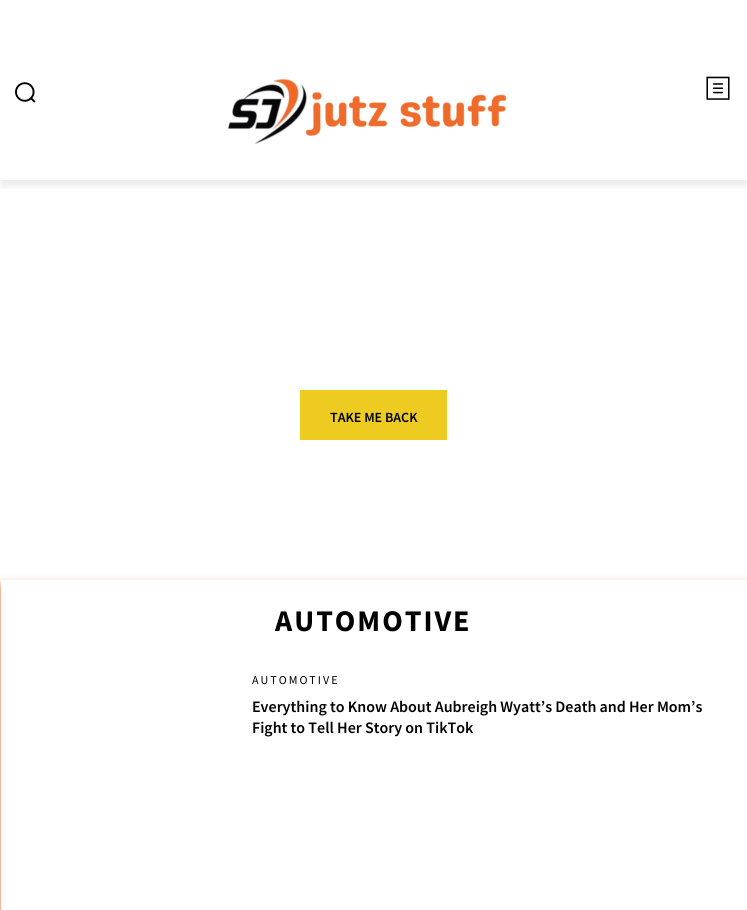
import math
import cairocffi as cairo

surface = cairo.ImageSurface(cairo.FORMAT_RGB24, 747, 910)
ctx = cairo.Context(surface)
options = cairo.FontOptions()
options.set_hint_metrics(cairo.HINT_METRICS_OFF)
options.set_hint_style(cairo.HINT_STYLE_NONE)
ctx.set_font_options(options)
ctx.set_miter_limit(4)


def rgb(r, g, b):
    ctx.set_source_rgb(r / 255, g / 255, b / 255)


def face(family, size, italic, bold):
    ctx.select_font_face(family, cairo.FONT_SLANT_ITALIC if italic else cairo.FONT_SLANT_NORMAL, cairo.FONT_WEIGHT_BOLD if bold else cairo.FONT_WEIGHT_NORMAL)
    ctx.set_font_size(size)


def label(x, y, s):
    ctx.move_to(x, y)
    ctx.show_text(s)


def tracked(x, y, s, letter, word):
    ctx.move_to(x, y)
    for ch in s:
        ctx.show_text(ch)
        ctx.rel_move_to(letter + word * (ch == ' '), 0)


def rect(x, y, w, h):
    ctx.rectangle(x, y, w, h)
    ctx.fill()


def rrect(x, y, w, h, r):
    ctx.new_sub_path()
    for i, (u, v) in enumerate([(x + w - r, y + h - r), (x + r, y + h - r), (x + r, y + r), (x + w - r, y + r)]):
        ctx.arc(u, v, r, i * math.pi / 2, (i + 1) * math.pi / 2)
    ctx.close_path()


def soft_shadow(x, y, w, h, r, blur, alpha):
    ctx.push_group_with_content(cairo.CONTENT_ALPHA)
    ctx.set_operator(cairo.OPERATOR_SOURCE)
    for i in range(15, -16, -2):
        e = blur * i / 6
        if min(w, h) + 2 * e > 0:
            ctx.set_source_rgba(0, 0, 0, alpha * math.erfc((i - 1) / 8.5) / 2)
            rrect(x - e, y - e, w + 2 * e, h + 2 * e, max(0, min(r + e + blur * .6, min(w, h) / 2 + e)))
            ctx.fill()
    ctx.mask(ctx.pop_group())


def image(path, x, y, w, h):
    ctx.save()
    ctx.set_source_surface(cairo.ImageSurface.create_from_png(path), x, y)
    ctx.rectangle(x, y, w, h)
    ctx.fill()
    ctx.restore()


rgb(255, 255, 255)
ctx.paint()
image('image0.png', 15, 82, 21, 21)
image('image1.png', 227, 78, 280, 66)
image('image2.png', 706, 76, 24, 24)
ctx.save()
ctx.rectangle(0, 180, 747, 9)
ctx.clip()
rgb(0, 0, 0)
soft_shadow(1, 6, 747, 180, 0, 4, 0.08)
ctx.restore()
rgb(237, 203, 33)
rect(300, 390, 147, 50)
face('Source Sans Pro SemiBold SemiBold', 14, 0, 0)
rgb(0, 0, 0)
label(330, 422, 'TAKE ME BACK')
ctx.save()
ctx.set_fill_rule(cairo.FILL_RULE_EVEN_ODD)
ctx.new_path()
ctx.move_to(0, 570)
ctx.line_to(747, 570)
ctx.line_to(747, 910)
ctx.line_to(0, 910)
ctx.close_path()
ctx.move_to(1, 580)
ctx.line_to(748, 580)
ctx.line_to(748, 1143)
ctx.line_to(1, 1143)
ctx.close_path()
ctx.clip()
rgb(242, 105, 37)
soft_shadow(1, 586, 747, 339, 0, 5, 1)
ctx.restore()
face('Source Sans Pro', 30, 0, 1)
tracked(275, 631, 'AUTOMOTIVE', 2, 0)
face('Source Sans Pro', 12, 0, 0)
tracked(252, 684, 'AUTOMOTIVE', 2, 0)
face('Source Sans Pro SemiBold SemiBold', 16, 0, 0)
label(252, 712, 'Everything to Know About Aubreigh Wyatt’s Death and Her Mom’s')
label(252, 733, 'Fight to Tell Her Story on TikTok')
surface.write_to_png('render.png')
